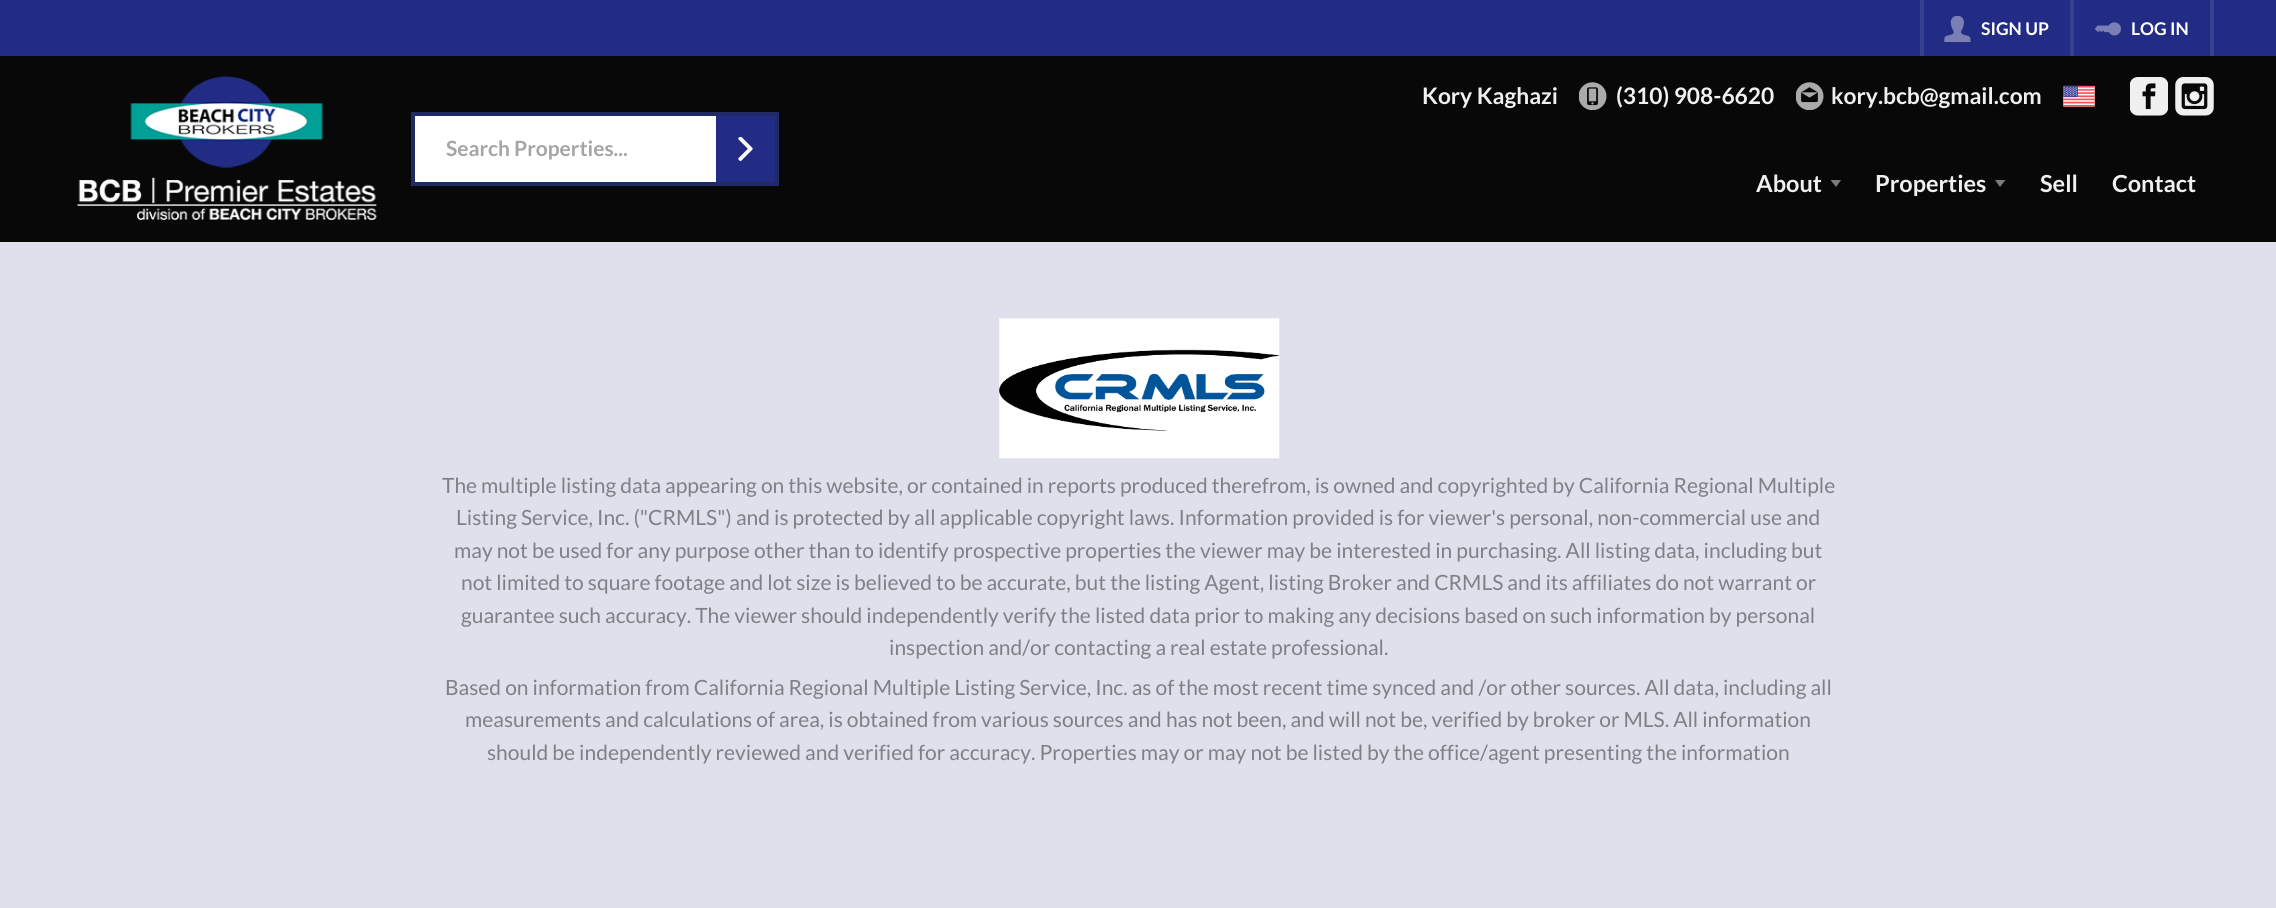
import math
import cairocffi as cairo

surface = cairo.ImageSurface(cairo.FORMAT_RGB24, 2276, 908)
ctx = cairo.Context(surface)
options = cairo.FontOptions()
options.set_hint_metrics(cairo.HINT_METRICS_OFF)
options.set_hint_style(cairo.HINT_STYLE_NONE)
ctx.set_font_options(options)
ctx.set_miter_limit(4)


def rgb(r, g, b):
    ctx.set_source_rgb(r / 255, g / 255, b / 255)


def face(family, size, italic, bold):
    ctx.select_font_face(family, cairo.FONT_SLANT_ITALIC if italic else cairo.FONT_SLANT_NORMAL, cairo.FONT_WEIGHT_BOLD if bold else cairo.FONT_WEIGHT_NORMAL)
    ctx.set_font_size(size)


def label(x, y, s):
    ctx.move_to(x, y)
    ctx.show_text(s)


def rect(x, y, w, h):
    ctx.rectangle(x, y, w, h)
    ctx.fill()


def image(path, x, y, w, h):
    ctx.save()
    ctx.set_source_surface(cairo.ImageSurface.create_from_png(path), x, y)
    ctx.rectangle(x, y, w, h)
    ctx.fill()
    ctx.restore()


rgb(224, 224, 237)
ctx.paint()
rgb(34, 44, 132)
rect(0, 0, 2276, 56)
rgb(56, 65, 144)
rect(2210, 0, 4, 56)
rect(1920, 0, 4, 56)
image('image0.png', 1944, 16, 27, 26)
face('Lato', 17.5, 0, 1)
rgb(255, 255, 255)
label(1981, 35, 'SIGN UP')
rgb(56, 65, 144)
rect(2070, 0, 4, 56)
image('image1.png', 2095, 22, 26, 14)
rgb(255, 255, 255)
label(2131, 35, 'LOG IN')
rgb(8, 8, 8)
rect(0, 56, 2276, 186)
image('image2.png', 77, 76, 300, 145)
ctx.rectangle(413, 114, 364, 70)
rgb(34, 41, 103)
ctx.set_line_width(4)
ctx.stroke()
rgb(255, 255, 255)
rect(415, 116, 301, 66)
face('Lato', 21, 0, 1)
rgb(165, 165, 165)
label(446, 156, 'Search Properties...')
rgb(34, 44, 132)
rect(716, 116, 59, 66)
image('image3.png', 738, 137, 15, 24)
face('Lato', 22.75, 0, 1)
rgb(240, 240, 240)
label(1422, 104, 'Kory Kaghazi')
image('image4.png', 1579, 82, 28, 28)
label(1616, 104, '(310) 908-6620')
image('image5.png', 1796, 82, 28, 28)
label(1831, 104, 'kory.bcb@gmail.com')
image('image6.png', 2063, 85, 32, 22)
image('image7.png', 2130, 77, 38, 39)
image('image8.png', 2175, 77, 39, 39)
face('Lato', 23.5, 0, 1)
label(1756, 192, 'About')
rgb(124, 124, 124)
ctx.new_path()
ctx.move_to(1830.5, 180)
ctx.line_to(1841, 180)
ctx.line_to(1836, 187)
ctx.close_path()
ctx.fill()
rgb(240, 240, 240)
label(1875, 192, 'Properties')
rgb(124, 124, 124)
ctx.new_path()
ctx.move_to(1995, 180)
ctx.line_to(2005.5, 180)
ctx.line_to(2000, 187)
ctx.close_path()
ctx.fill()
rgb(240, 240, 240)
label(2040, 192, 'Sell')
label(2112, 192, 'Contact')
image('image9.png', 999, 318, 281, 141)
face('Lato', 21, 0, 0)
rgb(127, 127, 134)
label(442, 493, 'The multiple listing data appearing on this website, or contained in reports produced therefrom, is owned and copyrighted by California Regional Multiple')
label(456, 525, 'Listing Service, Inc. ("CRMLS") and is protected by all applicable copyright laws. Information provided is for viewer\'s personal, non-commercial use and')
label(454, 558, 'may not be used for any purpose other than to identify prospective properties the viewer may be interested in purchasing. All listing data, including but')
label(461, 590, 'not limited to square footage and lot size is believed to be accurate, but the listing Agent, listing Broker and CRMLS and its affiliates do not warrant or')
label(461, 623, 'guarantee such accuracy. The viewer should independently verify the listed data prior to making any decisions based on such information by personal')
label(889, 655, 'inspection and/or contacting a real estate professional.')
label(445, 695, 'Based on information from California Regional Multiple Listing Service, Inc. as of the most recent time synced and /or other sources. All data, including all')
label(465, 727, 'measurements and calculations of area, is obtained from various sources and has not been, and will not be, verified by broker or MLS. All information')
label(487, 760, 'should be independently reviewed and verified for accuracy. Properties may or may not be listed by the office/agent presenting the information')
surface.write_to_png('render.png')
